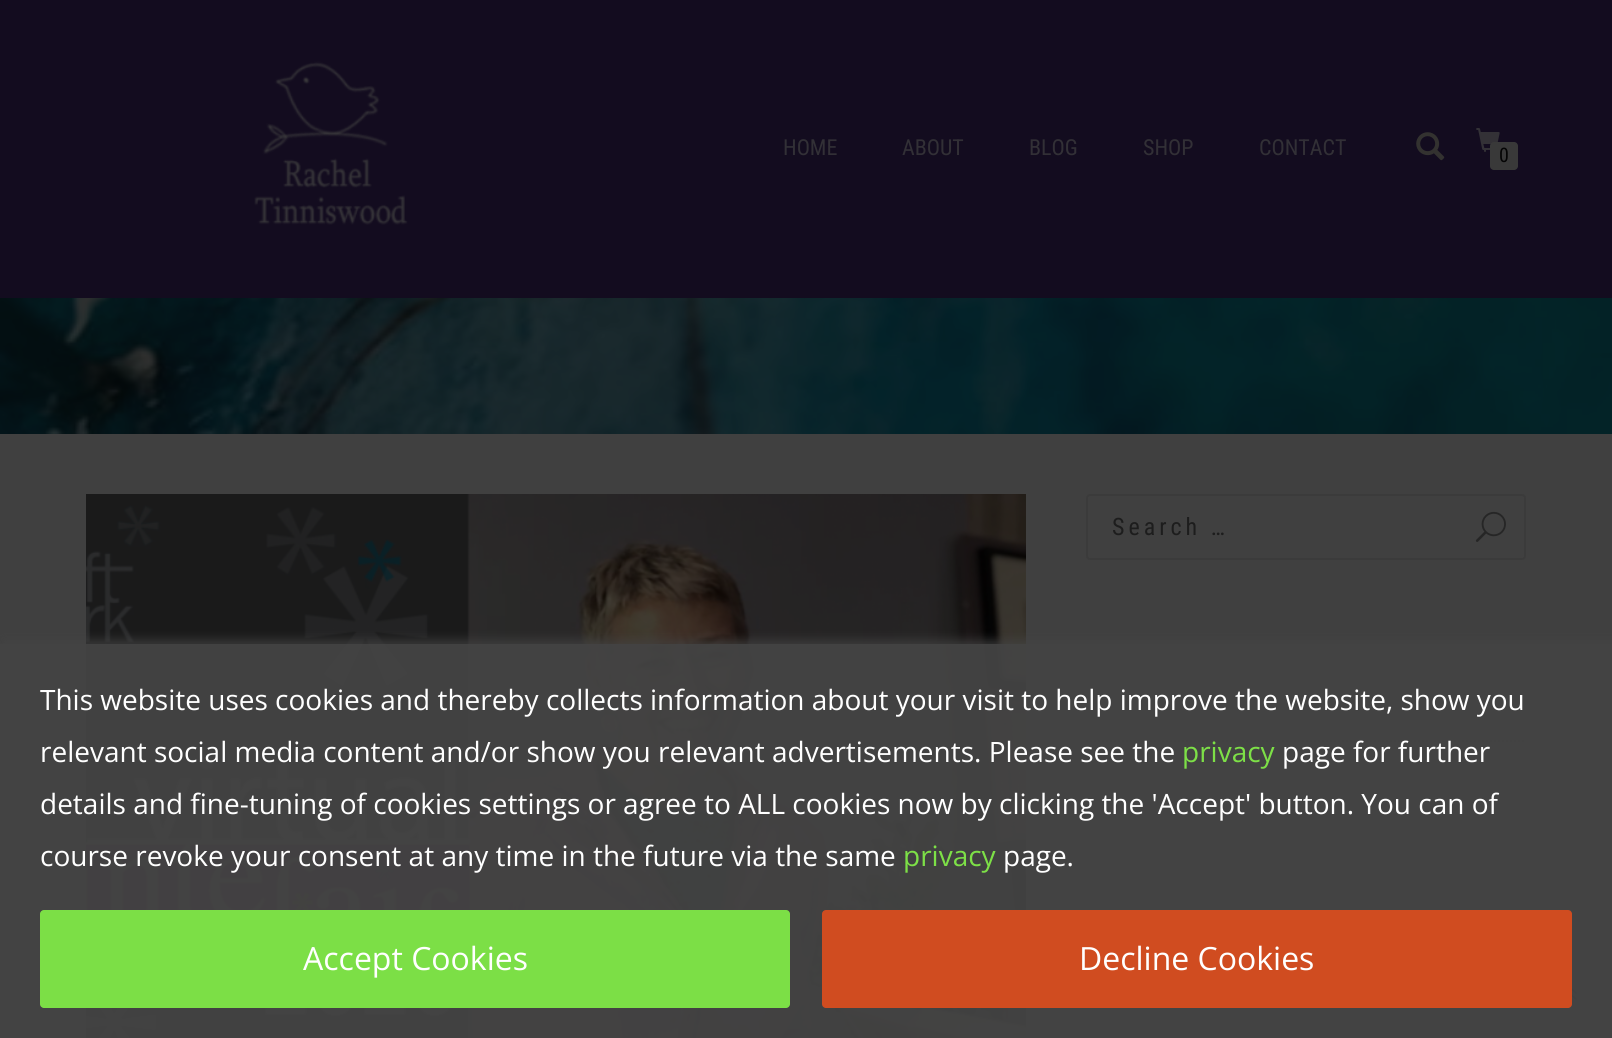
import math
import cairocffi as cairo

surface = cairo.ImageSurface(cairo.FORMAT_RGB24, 1612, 1038)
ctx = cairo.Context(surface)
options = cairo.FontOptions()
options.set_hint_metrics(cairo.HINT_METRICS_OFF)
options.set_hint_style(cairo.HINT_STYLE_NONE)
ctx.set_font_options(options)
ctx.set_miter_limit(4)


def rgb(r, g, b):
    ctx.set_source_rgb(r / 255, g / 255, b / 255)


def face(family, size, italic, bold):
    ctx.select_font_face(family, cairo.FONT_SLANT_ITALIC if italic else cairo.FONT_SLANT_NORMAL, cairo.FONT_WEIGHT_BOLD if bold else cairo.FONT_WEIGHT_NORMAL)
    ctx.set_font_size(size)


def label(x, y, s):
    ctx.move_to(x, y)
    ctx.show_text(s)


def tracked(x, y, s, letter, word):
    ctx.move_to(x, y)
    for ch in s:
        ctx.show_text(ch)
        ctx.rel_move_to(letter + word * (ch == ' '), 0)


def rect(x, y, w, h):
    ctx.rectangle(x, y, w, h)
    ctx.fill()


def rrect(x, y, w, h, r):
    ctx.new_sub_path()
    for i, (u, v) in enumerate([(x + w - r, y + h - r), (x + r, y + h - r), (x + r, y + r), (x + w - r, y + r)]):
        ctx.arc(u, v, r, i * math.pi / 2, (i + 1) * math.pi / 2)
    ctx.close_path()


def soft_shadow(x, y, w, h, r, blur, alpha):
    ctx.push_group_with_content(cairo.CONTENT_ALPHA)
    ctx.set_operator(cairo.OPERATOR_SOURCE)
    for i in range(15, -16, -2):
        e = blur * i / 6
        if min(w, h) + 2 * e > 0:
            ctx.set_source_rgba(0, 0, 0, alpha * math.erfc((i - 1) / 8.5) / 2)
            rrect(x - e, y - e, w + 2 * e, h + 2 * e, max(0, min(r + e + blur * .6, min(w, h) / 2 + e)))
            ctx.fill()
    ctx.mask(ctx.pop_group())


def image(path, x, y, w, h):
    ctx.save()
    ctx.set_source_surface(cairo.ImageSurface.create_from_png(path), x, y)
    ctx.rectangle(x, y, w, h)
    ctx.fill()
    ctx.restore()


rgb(64, 64, 64)
ctx.paint()
rgb(19, 12, 31)
rect(0, 0, 1612, 298)
image('image0.png', 254, 61, 154, 164)
face('Roboto Condensed', 22, 0, 0)
rgb(50, 48, 54)
label(783, 155, 'HOME')
label(902, 155, 'ABOUT')
label(1029, 155, 'BLOG')
label(1143, 155, 'SHOP')
label(1259, 155, 'CONTACT')
image('image1.png', 1416, 132, 29, 29)
image('image2.png', 1476, 128, 24, 24)
rgb(57, 57, 57)
rrect(1490, 142, 28, 28, 4)
ctx.fill()
face('Roboto Condensed', 20, 0, 0)
rgb(4, 4, 4)
label(1499, 162, '0')
image('image3.png', 0, 298, 1612, 136)
image('image4.png', 86, 494, 940, 544)
rrect(1087, 495, 438, 64, 3)
rgb(59, 59, 59)
ctx.stroke()
face('Roboto Condensed', 24, 0, 0)
rgb(29, 29, 29)
tracked(1112, 535, 'Search …', 4, 0)
image('image5.png', 1475, 511, 31, 31)
ctx.new_path()
ctx.move_to(1086, 741)
ctx.line_to(1526, 741)
rgb(49, 49, 49)
ctx.set_dash([2, 2])
ctx.stroke()
image('image6.png', 1572, 988, 5, 12)
ctx.save()
ctx.rectangle(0, 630, 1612, 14)
ctx.clip()
rgb(68, 68, 68)
soft_shadow(4, 640, 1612, 394, 0, 5, 0.75)
ctx.restore()
ctx.set_source_rgba(0.267, 0.267, 0.267, 0.95)
rect(0, 644, 1612, 394)
face('Open Sans', 28, 0, 0)
rgb(255, 255, 255)
label(40, 710, 'This website uses cookies and thereby collects information about your visit to help improve the website, show you')
label(40, 762, 'relevant social media content and/or show you relevant advertisements. Please see the')
rgb(125, 224, 71)
label(1182, 762, 'privacy')
rgb(255, 255, 255)
label(1282, 762, 'page for further')
label(40, 814, 'details and fine-tuning of cookies settings or agree to ALL cookies now by clicking the \'Accept\' button. You can of')
label(40, 866, 'course revoke your consent at any time in the future via the same')
rgb(125, 224, 71)
label(903, 866, 'privacy')
rgb(255, 255, 255)
label(1003, 866, 'page.')
rgb(124, 223, 70)
rrect(40, 910, 750, 98, 4)
ctx.fill()
face('Open Sans', 32, 0, 0)
rgb(255, 255, 255)
label(303, 970, 'Accept Cookies')
rgb(208, 76, 32)
rrect(822, 910, 750, 98, 4)
ctx.fill()
rgb(255, 255, 255)
label(1079, 970, 'Decline Cookies')
surface.write_to_png('render.png')
